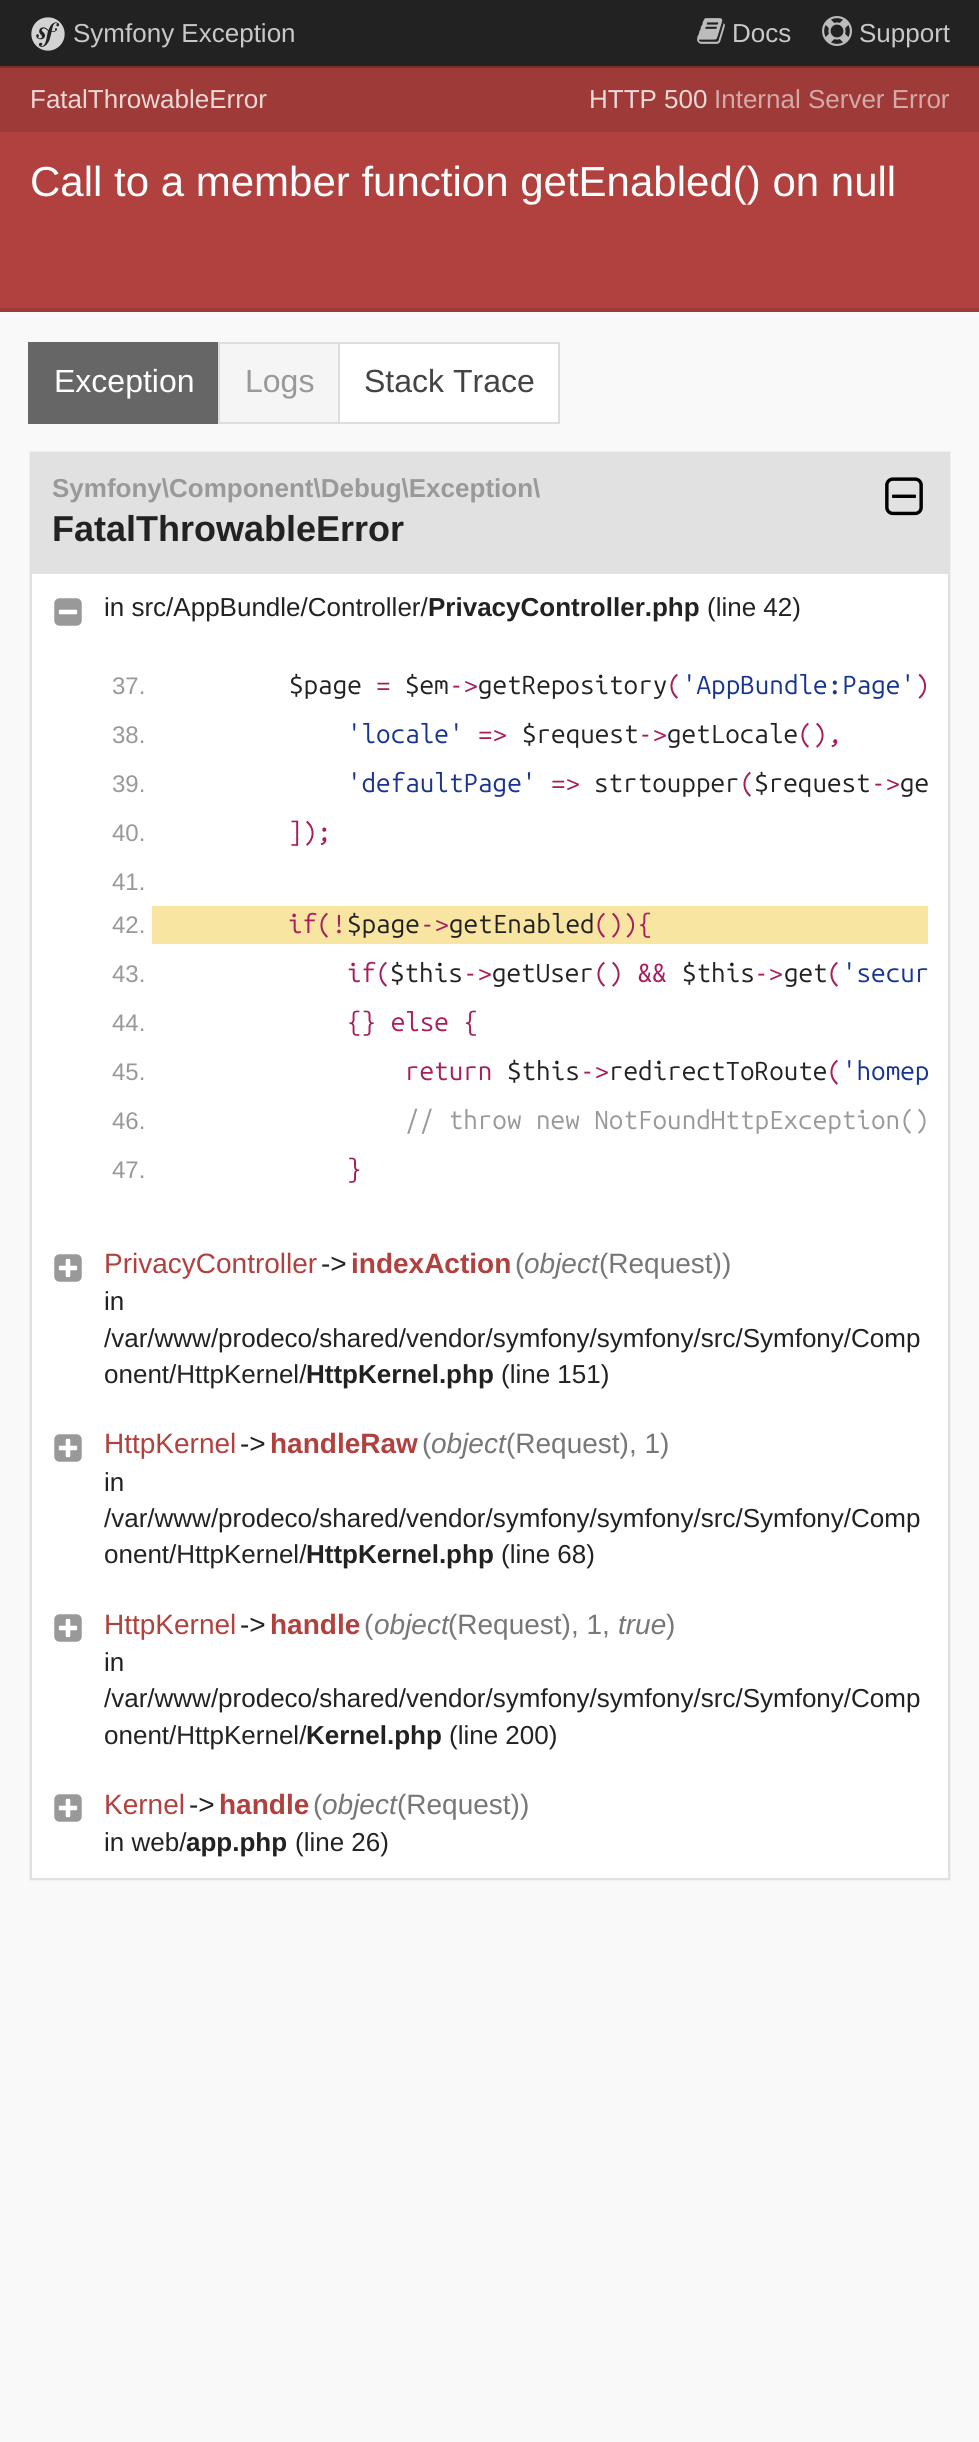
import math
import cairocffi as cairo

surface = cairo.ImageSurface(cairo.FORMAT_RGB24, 979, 2442)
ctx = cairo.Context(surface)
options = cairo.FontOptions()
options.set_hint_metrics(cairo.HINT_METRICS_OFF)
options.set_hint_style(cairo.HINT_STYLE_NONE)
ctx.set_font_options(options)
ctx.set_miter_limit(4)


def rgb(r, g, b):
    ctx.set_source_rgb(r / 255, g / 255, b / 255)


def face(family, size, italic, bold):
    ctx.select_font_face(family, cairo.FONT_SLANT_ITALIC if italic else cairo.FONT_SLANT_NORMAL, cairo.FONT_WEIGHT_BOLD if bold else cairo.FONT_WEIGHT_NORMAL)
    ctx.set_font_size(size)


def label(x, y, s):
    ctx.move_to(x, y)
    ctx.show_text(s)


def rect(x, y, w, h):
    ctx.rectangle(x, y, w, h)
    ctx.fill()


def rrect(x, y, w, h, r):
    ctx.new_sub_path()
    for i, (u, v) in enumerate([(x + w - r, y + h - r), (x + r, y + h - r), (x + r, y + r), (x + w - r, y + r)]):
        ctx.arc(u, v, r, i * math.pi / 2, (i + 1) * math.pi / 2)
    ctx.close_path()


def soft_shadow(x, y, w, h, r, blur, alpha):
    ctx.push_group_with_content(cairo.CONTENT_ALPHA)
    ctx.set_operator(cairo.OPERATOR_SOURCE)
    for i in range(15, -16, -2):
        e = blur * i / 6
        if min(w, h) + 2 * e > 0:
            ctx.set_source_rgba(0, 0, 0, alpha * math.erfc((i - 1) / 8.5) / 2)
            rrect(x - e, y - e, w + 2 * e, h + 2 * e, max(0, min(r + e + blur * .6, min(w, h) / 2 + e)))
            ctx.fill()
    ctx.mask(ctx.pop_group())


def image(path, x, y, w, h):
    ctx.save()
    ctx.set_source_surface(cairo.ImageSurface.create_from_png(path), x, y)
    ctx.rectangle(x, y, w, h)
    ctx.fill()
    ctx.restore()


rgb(249, 249, 249)
ctx.paint()
rgb(34, 34, 34)
rect(0, 0, 979, 66)
image('image0.png', 31, 17, 34, 34)
face('Liberation Sans', 26, 0, 0)
rgb(200, 200, 200)
label(73, 42, 'Symfony Exception')
image('image1.png', 697, 18, 28, 26)
label(732, 42, 'Docs')
image('image2.png', 822, 16, 30, 30)
label(859, 42, 'Support')
rgb(176, 65, 62)
rect(0, 132, 979, 176)
rgb(123, 46, 43)
rect(0, 66, 979, 2)
rgb(158, 59, 56)
rect(0, 308, 979, 4)
rect(0, 68, 979, 64)
rgb(236, 216, 215)
label(30, 108, 'FatalThrowableError')
label(589, 108, 'HTTP 500')
rgb(212, 169, 167)
label(714, 108, 'Internal Server Error')
face('Liberation Sans', 42, 0, 0)
rgb(255, 255, 255)
label(30, 196, 'Call to a member function getEnabled() on null')
rgb(102, 102, 102)
rect(28, 342, 190, 82)
face('Liberation Sans', 32, 0, 0)
rgb(255, 255, 255)
label(54, 392, 'Exception')
rgb(245, 245, 245)
ctx.rectangle(219, 343, 120, 80)
ctx.fill_preserve()
rgb(221, 221, 221)
ctx.stroke()
rgb(153, 153, 153)
label(245, 392, 'Logs')
rgb(255, 255, 255)
ctx.rectangle(339, 343, 220, 80)
ctx.fill_preserve()
rgb(221, 221, 221)
ctx.stroke()
rgb(68, 68, 68)
label(364, 392, 'Stack Trace')
rgb(128, 128, 128)
soft_shadow(30, 452, 920, 1428, 0, 1, 0.2)
rgb(255, 255, 255)
rect(32, 574, 916, 1304)
ctx.rectangle(31, 453, 918, 1426)
rgb(224, 224, 224)
ctx.stroke()
face('Liberation Sans', 26, 0, 1)
rgb(153, 153, 153)
label(52, 497, 'Symfony\\Component\\Debug\\Exception\\')
image('image3.png', 885, 477, 38, 39)
face('Liberation Sans', 36, 0, 1)
rgb(34, 34, 34)
label(52, 541, 'FatalThrowableError')
image('image4.png', 54, 598, 28, 28)
face('Liberation Sans', 26, 0, 0)
label(104, 616, 'in src/AppBundle/Controller/')
face('Liberation Sans', 26, 0, 1)
label(428, 616, 'PrivacyController.php')
face('Liberation Sans', 26, 0, 0)
label(707, 616, '(line 42)')
face('Liberation Sans', 24, 0, 0)
rgb(153, 153, 153)
label(112, 694, '37.')
face('Ubuntu Mono', 26, 0, 0)
rgb(34, 34, 34)
label(289, 694, '$page')
rgb(167, 29, 93)
label(376, 694, '=')
rgb(34, 34, 34)
label(405, 694, '$em')
rgb(167, 29, 93)
label(449, 694, '->')
rgb(34, 34, 34)
label(478, 694, 'getRepository')
rgb(167, 29, 93)
label(667, 694, '(')
rgb(24, 54, 145)
label(682, 694, '\'AppBundle:Page\'')
rgb(167, 29, 93)
label(915, 694, ')')
face('Liberation Sans', 24, 0, 0)
rgb(153, 153, 153)
label(112, 743, '38.')
face('Ubuntu Mono', 26, 0, 0)
rgb(24, 54, 145)
label(347, 743, '\'locale\'')
rgb(167, 29, 93)
label(478, 743, '=>')
rgb(34, 34, 34)
label(522, 743, '$request')
rgb(167, 29, 93)
label(638, 743, '->')
rgb(34, 34, 34)
label(667, 743, 'getLocale')
rgb(167, 29, 93)
label(798, 743, '(),')
rgb(24, 54, 145)
label(347, 792, '\'defaultPage\'')
rgb(34, 34, 34)
label(594, 792, 'strtoupper $request')
face('Liberation Sans', 24, 0, 0)
rgb(153, 153, 153)
label(112, 792, '39.')
face('Ubuntu Mono', 26, 0, 0)
rgb(167, 29, 93)
label(551, 792, '=>')
label(740, 792, '(')
label(871, 792, '->')
rgb(34, 34, 34)
label(900, 792, 'ge')
face('Liberation Sans', 24, 0, 0)
rgb(153, 153, 153)
label(112, 841, '40.')
face('Ubuntu Mono', 26, 0, 0)
rgb(167, 29, 93)
label(288, 841, ']);')
face('Liberation Sans', 24, 0, 0)
rgb(153, 153, 153)
label(112, 890, '41.')
rgb(247, 229, 161)
rect(152, 906, 776, 38)
rgb(153, 153, 153)
label(112, 933, '42.')
face('Ubuntu Mono', 26, 0, 0)
rgb(167, 29, 93)
label(288, 933, 'if(!')
rgb(34, 34, 34)
label(347, 933, '$page')
rgb(167, 29, 93)
label(420, 933, '->')
rgb(34, 34, 34)
label(449, 933, 'getEnabled')
rgb(167, 29, 93)
label(594, 933, '()){')
face('Liberation Sans', 24, 0, 0)
rgb(153, 153, 153)
label(112, 982, '43.')
face('Ubuntu Mono', 26, 0, 0)
rgb(167, 29, 93)
label(347, 982, 'if(')
rgb(34, 34, 34)
label(390, 982, '$this')
rgb(167, 29, 93)
label(463, 982, '->')
rgb(34, 34, 34)
label(492, 982, 'getUser')
rgb(167, 29, 93)
label(594, 982, '() &&')
rgb(34, 34, 34)
label(682, 982, '$this')
rgb(167, 29, 93)
label(754, 982, '->')
rgb(34, 34, 34)
label(784, 982, 'get')
rgb(167, 29, 93)
label(827, 982, '(')
rgb(24, 54, 145)
label(842, 982, '\'secur')
face('Liberation Sans', 24, 0, 0)
rgb(153, 153, 153)
label(112, 1031, '44.')
face('Ubuntu Mono', 26, 0, 0)
rgb(167, 29, 93)
label(347, 1031, '{} else {')
face('Liberation Sans', 24, 0, 0)
rgb(153, 153, 153)
label(112, 1080, '45.')
face('Ubuntu Mono', 26, 0, 0)
rgb(167, 29, 93)
label(405, 1080, 'return')
rgb(34, 34, 34)
label(507, 1080, '$this')
rgb(167, 29, 93)
label(580, 1080, '->')
rgb(34, 34, 34)
label(609, 1080, 'redirectToRoute')
rgb(167, 29, 93)
label(827, 1080, '(')
rgb(24, 54, 145)
label(842, 1080, '\'homep')
face('Liberation Sans', 24, 0, 0)
rgb(153, 153, 153)
label(112, 1129, '46.')
face('Ubuntu Mono', 26, 0, 0)
label(405, 1129, '// throw new NotFoundHttpException()')
face('Liberation Sans', 24, 0, 0)
label(112, 1178, '47.')
face('Ubuntu Mono', 26, 0, 0)
rgb(167, 29, 93)
label(347, 1178, '}')
image('image5.png', 54, 1254, 28, 28)
face('Liberation Sans', 28, 0, 0)
rgb(176, 65, 62)
label(104, 1273, 'PrivacyController')
rgb(34, 34, 34)
label(321, 1273, '->')
face('Liberation Sans', 28, 0, 1)
rgb(176, 65, 62)
label(351, 1273, 'indexAction')
face('Liberation Sans', 28, 0, 0)
rgb(119, 119, 119)
label(515, 1273, '(')
face('Liberation Sans', 28, 1, 0)
label(524, 1273, 'object')
face('Liberation Sans', 28, 0, 0)
label(599, 1273, '(Request))')
face('Liberation Sans', 26, 0, 0)
rgb(34, 34, 34)
label(104, 1310, 'in')
label(104, 1347, '/var/www/prodeco/shared/vendor/symfony/symfony/src/Symfony/Comp')
label(104, 1383, 'onent/HttpKernel/')
face('Liberation Sans', 26, 0, 1)
label(306, 1383, 'HttpKernel.php')
face('Liberation Sans', 26, 0, 0)
label(501, 1383, '(line 151)')
image('image5.png', 54, 1434, 28, 28)
face('Liberation Sans', 28, 0, 0)
rgb(176, 65, 62)
label(104, 1453, 'HttpKernel')
rgb(34, 34, 34)
label(240, 1453, '->')
face('Liberation Sans', 28, 0, 1)
rgb(176, 65, 62)
label(270, 1453, 'handleRaw')
face('Liberation Sans', 28, 0, 0)
rgb(119, 119, 119)
label(422, 1453, '(')
face('Liberation Sans', 28, 1, 0)
label(431, 1453, 'object')
face('Liberation Sans', 28, 0, 0)
label(506, 1453, '(Request), 1)')
face('Liberation Sans', 26, 0, 0)
rgb(34, 34, 34)
label(104, 1491, 'in')
label(104, 1527, '/var/www/prodeco/shared/vendor/symfony/symfony/src/Symfony/Comp')
label(104, 1563, 'onent/HttpKernel/')
face('Liberation Sans', 26, 0, 1)
label(306, 1563, 'HttpKernel.php')
face('Liberation Sans', 26, 0, 0)
label(501, 1563, '(line 68)')
image('image5.png', 54, 1614, 28, 28)
face('Liberation Sans', 28, 0, 0)
rgb(176, 65, 62)
label(104, 1634, 'HttpKernel')
rgb(34, 34, 34)
label(240, 1634, '->')
face('Liberation Sans', 28, 0, 1)
rgb(176, 65, 62)
label(270, 1634, 'handle')
face('Liberation Sans', 28, 0, 0)
rgb(119, 119, 119)
label(364, 1634, '(')
face('Liberation Sans', 28, 1, 0)
label(374, 1634, 'object')
face('Liberation Sans', 28, 0, 0)
label(448, 1634, '(Request), 1,')
face('Liberation Sans', 28, 1, 0)
label(618, 1634, 'true')
face('Liberation Sans', 28, 0, 0)
label(666, 1634, ')')
face('Liberation Sans', 26, 0, 0)
rgb(34, 34, 34)
label(104, 1671, 'in')
label(104, 1707, '/var/www/prodeco/shared/vendor/symfony/symfony/src/Symfony/Comp')
label(104, 1744, 'onent/HttpKernel/')
face('Liberation Sans', 26, 0, 1)
label(306, 1744, 'Kernel.php')
face('Liberation Sans', 26, 0, 0)
label(449, 1744, '(line 200)')
image('image5.png', 54, 1794, 28, 28)
face('Liberation Sans', 28, 0, 0)
rgb(176, 65, 62)
label(104, 1814, 'Kernel')
rgb(34, 34, 34)
label(189, 1814, '->')
face('Liberation Sans', 28, 0, 1)
rgb(176, 65, 62)
label(219, 1814, 'handle')
face('Liberation Sans', 28, 0, 0)
rgb(119, 119, 119)
label(313, 1814, '(')
face('Liberation Sans', 28, 1, 0)
label(322, 1814, 'object')
face('Liberation Sans', 28, 0, 0)
label(397, 1814, '(Request))')
face('Liberation Sans', 26, 0, 0)
rgb(34, 34, 34)
label(104, 1851, 'in web/')
face('Liberation Sans', 26, 0, 1)
label(186, 1851, 'app.php')
face('Liberation Sans', 26, 0, 0)
label(295, 1851, '(line 26)')
surface.write_to_png('render.png')
